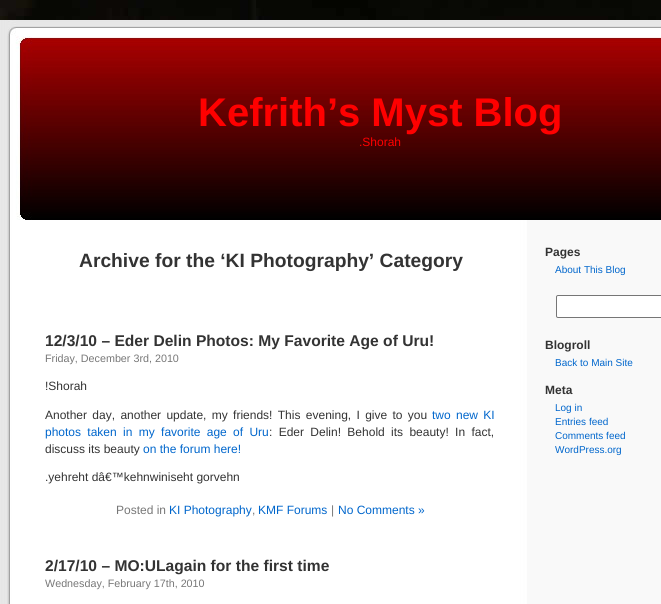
import math
import cairocffi as cairo

surface = cairo.ImageSurface(cairo.FORMAT_RGB24, 661, 604)
ctx = cairo.Context(surface)
options = cairo.FontOptions()
options.set_hint_metrics(cairo.HINT_METRICS_OFF)
options.set_hint_style(cairo.HINT_STYLE_NONE)
ctx.set_font_options(options)
ctx.set_miter_limit(4)


def rgb(r, g, b):
    ctx.set_source_rgb(r / 255, g / 255, b / 255)


def face(family, size, italic, bold):
    ctx.select_font_face(family, cairo.FONT_SLANT_ITALIC if italic else cairo.FONT_SLANT_NORMAL, cairo.FONT_WEIGHT_BOLD if bold else cairo.FONT_WEIGHT_NORMAL)
    ctx.set_font_size(size)


def label(x, y, s):
    ctx.move_to(x, y)
    ctx.show_text(s)


def tracked(x, y, s, letter, word):
    ctx.move_to(x, y)
    for ch in s:
        ctx.show_text(ch)
        ctx.rel_move_to(letter + word * (ch == ' '), 0)


def rrect(x, y, w, h, r):
    ctx.new_sub_path()
    for i, (u, v) in enumerate([(x + w - r, y + h - r), (x + r, y + h - r), (x + r, y + r), (x + w - r, y + r)]):
        ctx.arc(u, v, r, i * math.pi / 2, (i + 1) * math.pi / 2)
    ctx.close_path()


def image(path, x, y, w, h):
    ctx.save()
    ctx.set_source_surface(cairo.ImageSurface.create_from_png(path), x, y)
    ctx.rectangle(x, y, w, h)
    ctx.fill()
    ctx.restore()


rgb(255, 255, 255)
ctx.paint()
image('image0.png', 0, 0, 661, 20)
image('image1.png', 0, 20, 661, 584)
image('image2.png', 7, 20, 654, 200)
face('Liberation Sans', 40, 0, 1)
rgb(255, 0, 0)
label(198, 126, 'Kefrith’s Myst Blog')
face('Liberation Sans', 12, 0, 0)
label(359, 146, '.Shorah')
face('Liberation Sans', 19.25, 0, 1)
rgb(51, 51, 51)
label(79, 267, 'Archive for the ‘KI Photography’ Category')
face('Liberation Sans', 15.6, 0, 1)
label(45, 346, '12/3/10 – Eder Delin Photos: My Favorite Age of Uru!')
face('Liberation Sans', 10.75, 0, 0)
rgb(119, 119, 119)
label(45, 362, 'Friday, December 3rd, 2010')
face('Liberation Sans', 12, 0, 0)
rgb(51, 51, 51)
label(45, 390, '!Shorah')
tracked(45, 419, 'Another day, another update, my friends! This evening, I give to you', 0, 2)
rgb(0, 102, 204)
tracked(432, 419, 'two new KI', 0, 2)
tracked(45, 436, 'photos taken in my favorite age of Uru', 0, 3)
rgb(51, 51, 51)
tracked(269, 436, ': Eder Delin! Behold its beauty! In fact,', 0, 3)
label(45, 453, 'discuss its beauty')
rgb(0, 102, 204)
label(143, 453, 'on the forum here!')
rgb(51, 51, 51)
label(45, 481, '.yehreht dâ€™kehnwiniseht gorvehn')
rgb(119, 119, 119)
label(116, 514, 'Posted in')
rgb(0, 102, 204)
label(169, 514, 'KI Photography')
rgb(119, 119, 119)
label(252, 514, ',')
rgb(0, 102, 204)
label(258, 514, 'KMF Forums')
rgb(119, 119, 119)
label(331, 514, '|')
rgb(0, 102, 204)
label(338, 514, 'No Comments »')
face('Liberation Sans', 15.6, 0, 1)
rgb(51, 51, 51)
label(45, 571, '2/17/10 – MO:ULagain for the first time')
face('Liberation Sans', 10.75, 0, 0)
rgb(119, 119, 119)
label(45, 587, 'Wednesday, February 17th, 2010')
face('Liberation Sans', 12, 0, 1)
rgb(51, 51, 51)
label(545, 256, 'Pages')
face('Liberation Sans', 10, 0, 0)
rgb(0, 102, 204)
label(555, 273, 'About This Blog')
rgb(255, 255, 255)
rrect(556.5, 295.5, 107, 22, 1.5)
ctx.fill_preserve()
rgb(118, 118, 118)
ctx.set_line_width(1)
ctx.stroke()
face('Liberation Sans', 12, 0, 1)
rgb(51, 51, 51)
label(545, 349, 'Blogroll')
face('Liberation Sans', 10, 0, 0)
rgb(0, 102, 204)
label(555, 366, 'Back to Main Site')
face('Liberation Sans', 12, 0, 1)
rgb(51, 51, 51)
label(545, 394, 'Meta')
face('Liberation Sans', 10, 0, 0)
rgb(0, 102, 204)
label(555, 411, 'Log in')
label(555, 425, 'Entries feed')
label(555, 439, 'Comments feed')
label(555, 453, 'WordPress.org')
surface.write_to_png('render.png')
